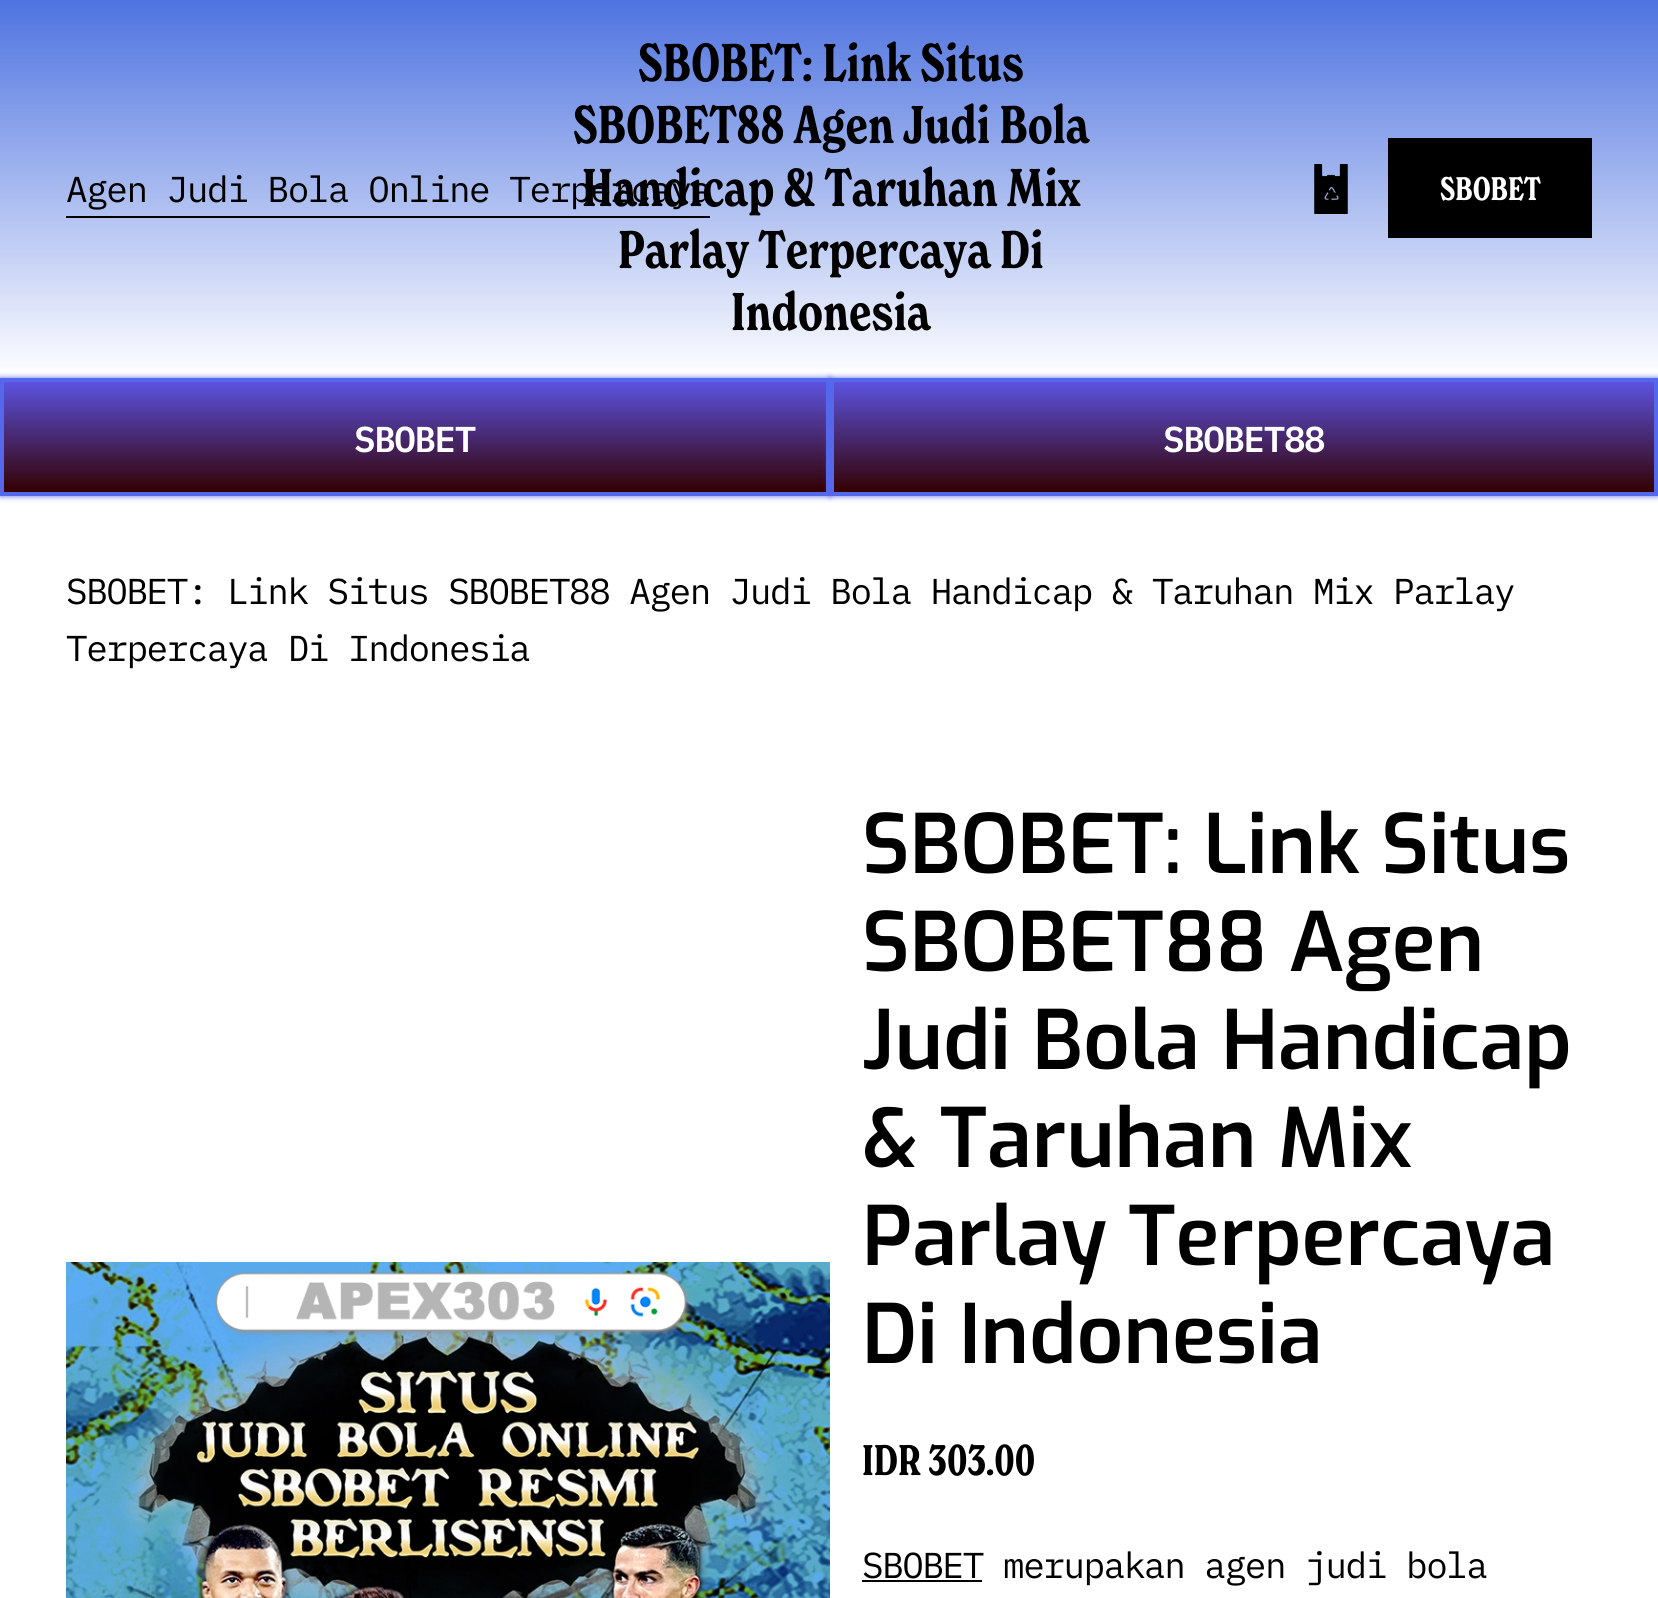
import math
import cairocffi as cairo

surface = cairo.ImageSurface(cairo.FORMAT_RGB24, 1658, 1598)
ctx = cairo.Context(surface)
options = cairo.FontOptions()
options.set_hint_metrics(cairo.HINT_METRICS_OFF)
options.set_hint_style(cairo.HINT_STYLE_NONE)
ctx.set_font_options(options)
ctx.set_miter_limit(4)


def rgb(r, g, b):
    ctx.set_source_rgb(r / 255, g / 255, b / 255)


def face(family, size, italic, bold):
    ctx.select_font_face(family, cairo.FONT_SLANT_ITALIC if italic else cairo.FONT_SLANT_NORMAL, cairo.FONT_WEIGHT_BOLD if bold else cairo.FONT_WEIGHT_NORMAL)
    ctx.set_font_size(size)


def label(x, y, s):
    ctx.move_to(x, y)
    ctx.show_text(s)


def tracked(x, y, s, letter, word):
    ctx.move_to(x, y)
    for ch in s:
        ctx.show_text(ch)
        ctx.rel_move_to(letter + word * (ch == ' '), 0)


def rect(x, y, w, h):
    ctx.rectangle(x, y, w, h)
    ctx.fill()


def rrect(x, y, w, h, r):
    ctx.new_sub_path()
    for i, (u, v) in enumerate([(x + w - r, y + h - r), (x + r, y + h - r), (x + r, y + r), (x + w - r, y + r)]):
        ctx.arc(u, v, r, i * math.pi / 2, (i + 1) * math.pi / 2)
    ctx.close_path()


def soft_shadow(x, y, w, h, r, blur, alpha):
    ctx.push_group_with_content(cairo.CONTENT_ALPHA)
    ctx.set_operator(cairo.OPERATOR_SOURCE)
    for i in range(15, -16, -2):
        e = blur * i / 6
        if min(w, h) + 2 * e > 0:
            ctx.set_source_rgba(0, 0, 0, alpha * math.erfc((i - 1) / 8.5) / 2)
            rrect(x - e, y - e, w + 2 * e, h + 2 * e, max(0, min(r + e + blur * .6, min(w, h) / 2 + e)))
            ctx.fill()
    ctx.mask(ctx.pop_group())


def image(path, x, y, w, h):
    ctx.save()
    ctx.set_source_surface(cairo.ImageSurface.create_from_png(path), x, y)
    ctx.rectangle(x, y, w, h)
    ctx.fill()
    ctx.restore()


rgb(255, 255, 255)
ctx.paint()
rgb(85, 104, 236)
soft_shadow(0, 378, 830, 118, 0, 3, 1)
gradient = cairo.LinearGradient(415, 382, 415, 492)
gradient.add_color_stop_rgba(0, 0.361, 0.322, 0.878, 1)
gradient.add_color_stop_rgba(1, 0.2, 0, 0, 1)
ctx.set_source(gradient)
rect(4, 382, 822, 110)
ctx.rectangle(2, 380, 826, 114)
rgb(85, 104, 236)
ctx.set_line_width(4)
ctx.stroke()
rgb(85, 104, 236)
soft_shadow(830, 378, 828, 118, 0, 3, 1)
gradient = cairo.LinearGradient(829, 0, 829, 378)
gradient.add_color_stop_rgba(0, 0.231, 0.392, 0.863, 0.9)
gradient.add_color_stop_rgba(1, 0.231, 0.392, 0.863, 0)
ctx.set_source(gradient)
rect(0, 0, 1658, 369)
rgb(0, 0, 0)
rect(66, 216, 644, 2)
face('IBM Plex Mono', 36, 0, 0)
tracked(66, 202, 'Agen Judi Bola Online Terpercaya', -1.45, 0)
face('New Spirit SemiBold', 52, 0, 0)
label(638, 81, 'SBOBET: Link Situs')
label(573, 143, 'SBOBET88 Agen Judi Bola')
label(582, 206, 'Handicap & Taruhan Mix')
label(618, 268, 'Parlay Terpercaya Di')
label(731, 330, 'Indonesia')
image('image0.png', 1314, 164, 34, 50)
rect(1388, 138, 204, 100)
face('New Spirit SemiBold', 32, 0, 0)
rgb(255, 255, 255)
label(1440, 200, 'SBOBET')
face('IBM Plex Mono SemiBold', 36, 0, 0)
tracked(354, 452, 'SBOBET', -1.45, 0)
gradient = cairo.LinearGradient(1244, 382, 1244, 492)
gradient.add_color_stop_rgba(0, 0.361, 0.322, 0.878, 1)
gradient.add_color_stop_rgba(1, 0.2, 0, 0, 1)
ctx.set_source(gradient)
rect(834, 382, 820, 110)
ctx.rectangle(832, 380, 824, 114)
rgb(85, 104, 236)
ctx.stroke()
rgb(255, 255, 255)
tracked(1163, 452, 'SBOBET88', -1.45, 0)
face('IBM Plex Mono', 36, 0, 0)
rgb(0, 0, 0)
tracked(66, 604, 'SBOBET: Link Situs SBOBET88 Agen Judi Bola Handicap & Taruhan Mix Parlay', -1.45, -0.25)
tracked(66, 661, 'Terpercaya Di Indonesia', -1.45, 0)
image('image1.png', 66, 1262, 764, 336)
face('Exo SemiBold', 81.75, 0, 0)
label(862, 873, 'SBOBET: Link Situs')
label(862, 971, 'SBOBET88 Agen')
label(862, 1069, 'Judi Bola Handicap')
label(862, 1167, '& Taruhan Mix')
label(862, 1265, 'Parlay Terpercaya')
label(862, 1363, 'Di Indonesia')
face('New Spirit SemiBold', 42, 0, 0)
label(862, 1475, 'IDR 303.00')
face('IBM Plex Mono', 36, 0, 0)
tracked(862, 1578, 'SBOBET', -1.45, 0)
rect(862, 1580, 120, 2)
tracked(1003, 1578, 'merupakan agen judi bola', -1.45, 0)
surface.write_to_png('render.png')
